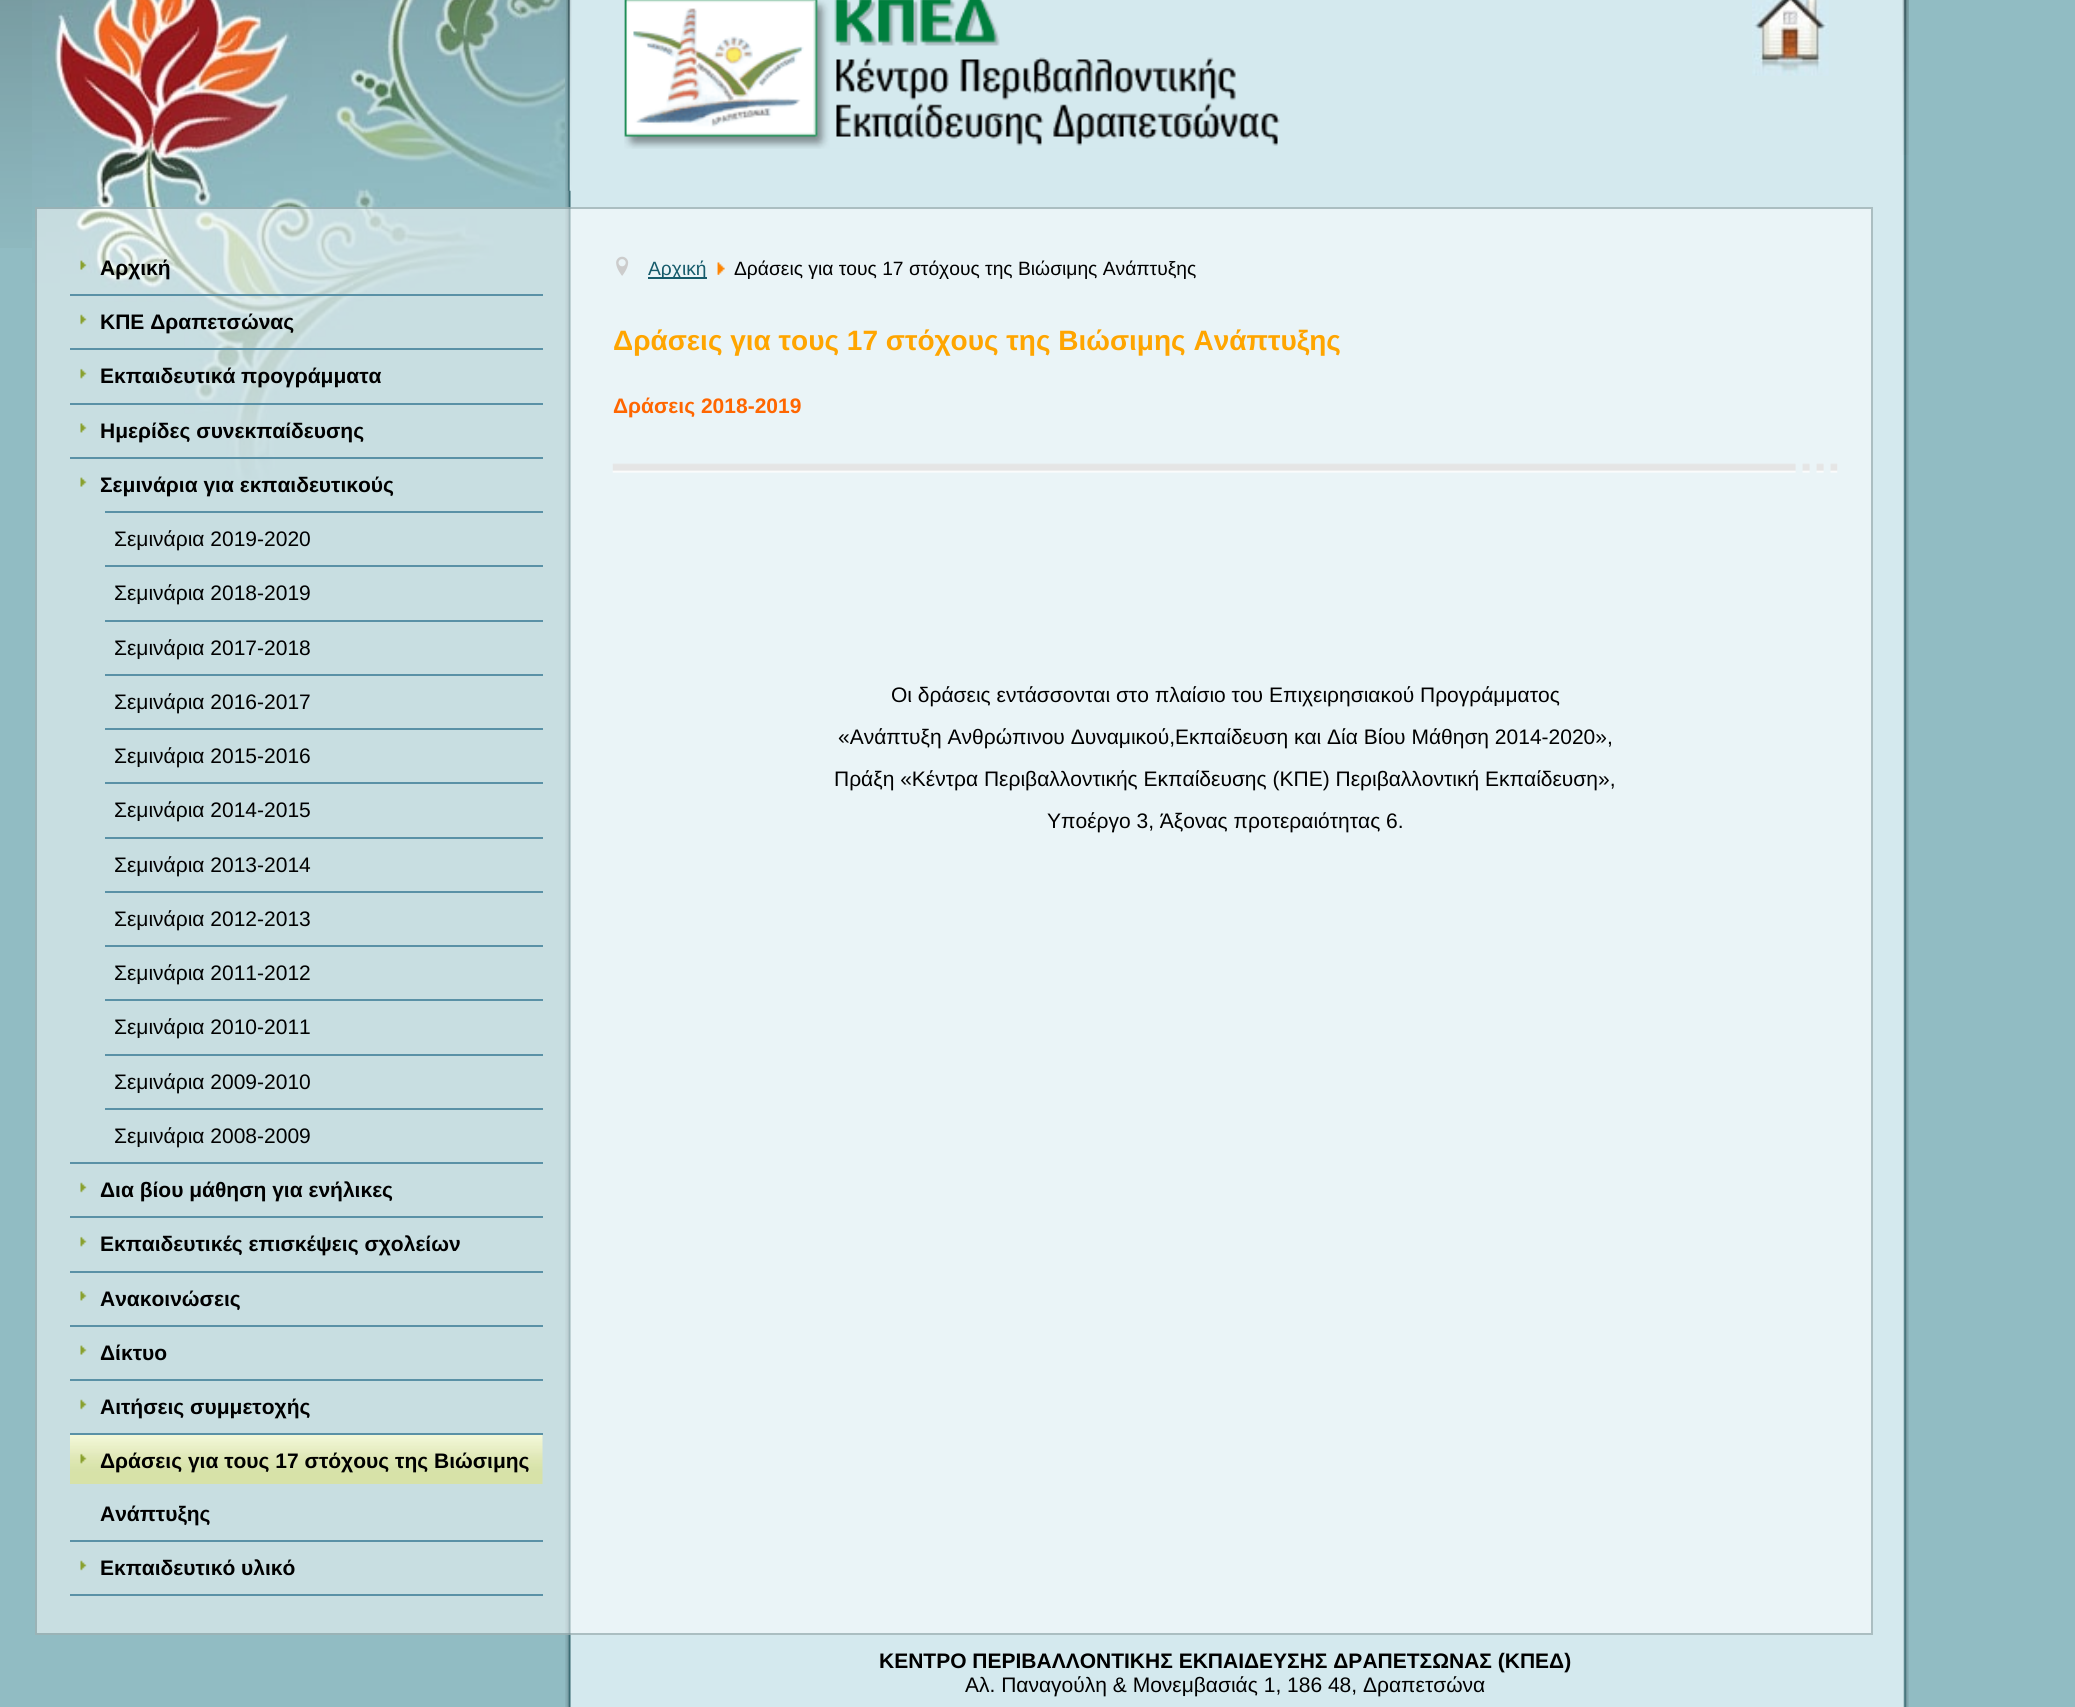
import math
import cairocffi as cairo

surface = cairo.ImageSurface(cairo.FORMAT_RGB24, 2075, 1707)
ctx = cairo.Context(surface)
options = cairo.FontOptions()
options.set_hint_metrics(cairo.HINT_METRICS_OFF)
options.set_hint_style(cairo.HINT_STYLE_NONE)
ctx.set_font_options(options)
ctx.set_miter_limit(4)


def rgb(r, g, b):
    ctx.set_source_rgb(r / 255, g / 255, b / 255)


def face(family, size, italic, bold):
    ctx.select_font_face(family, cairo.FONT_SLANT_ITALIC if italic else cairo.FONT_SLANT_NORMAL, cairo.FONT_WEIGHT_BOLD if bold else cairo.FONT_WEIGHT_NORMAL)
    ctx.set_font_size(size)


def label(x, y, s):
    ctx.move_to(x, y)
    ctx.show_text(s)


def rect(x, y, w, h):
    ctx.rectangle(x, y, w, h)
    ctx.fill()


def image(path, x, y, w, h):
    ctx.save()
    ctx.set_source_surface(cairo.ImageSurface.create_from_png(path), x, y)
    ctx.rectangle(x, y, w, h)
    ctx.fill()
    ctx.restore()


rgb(145, 188, 195)
ctx.paint()
image('image0.png', 0, 0, 32, 248)
image('image1.png', 32, 0, 533, 479)
image('image2.png', 565, 0, 9, 1707)
image('image3.png', 565, 0, 7, 191)
rgb(212, 233, 238)
rect(574, 0, 1325, 1707)
image('image4.png', 1899, 0, 10, 1707)
image('image5.png', 1902, 0, 7, 155)
ctx.set_source_rgba(1, 1, 1, 0.5)
rect(35, 207, 1838, 1428)
ctx.rectangle(36, 208, 1836, 1426)
ctx.set_source_rgba(0.424, 0.533, 0.553, 0.5)
ctx.stroke()
rgb(90, 145, 166)
rect(70, 294, 473, 2)
image('image6.png', 80, 260, 7, 10)
face('Liberation Sans', 21, 0, 1)
rgb(0, 0, 0)
label(100, 275, 'Αρχική')
rgb(90, 145, 166)
rect(70, 348, 473, 2)
image('image7.png', 80, 314, 7, 11)
rgb(0, 0, 0)
label(100, 329, 'ΚΠΕ Δραπετσώνας')
rgb(90, 145, 166)
rect(70, 403, 473, 2)
image('image8.png', 80, 368, 7, 11)
rgb(0, 0, 0)
label(100, 383, 'Εκπαιδευτικά προγράμματα')
rgb(90, 145, 166)
rect(70, 457, 473, 2)
image('image9.png', 80, 423, 7, 10)
rgb(0, 0, 0)
label(100, 438, 'Ημερίδες συνεκπαίδευσης')
rgb(90, 145, 166)
rect(70, 1162, 473, 2)
image('image10.png', 80, 477, 7, 10)
rgb(0, 0, 0)
label(100, 492, 'Σεμινάρια για εκπαιδευτικούς')
rgb(90, 145, 166)
rect(105, 511, 438, 2)
face('Liberation Sans', 21, 0, 0)
rgb(0, 0, 0)
label(114, 546, 'Σεμινάρια 2019-2020')
rgb(90, 145, 166)
rect(105, 565, 438, 2)
rgb(0, 0, 0)
label(114, 600, 'Σεμινάρια 2018-2019')
rgb(90, 145, 166)
rect(105, 620, 438, 2)
rgb(0, 0, 0)
label(114, 655, 'Σεμινάρια 2017-2018')
rgb(90, 145, 166)
rect(105, 674, 438, 2)
rgb(0, 0, 0)
label(114, 709, 'Σεμινάρια 2016-2017')
rgb(90, 145, 166)
rect(105, 728, 438, 2)
rgb(0, 0, 0)
label(114, 763, 'Σεμινάρια 2015-2016')
rgb(90, 145, 166)
rect(105, 782, 438, 2)
rgb(0, 0, 0)
label(114, 817, 'Σεμινάρια 2014-2015')
rgb(90, 145, 166)
rect(105, 837, 438, 2)
rgb(0, 0, 0)
label(114, 872, 'Σεμινάρια 2013-2014')
rgb(90, 145, 166)
rect(105, 891, 438, 2)
rgb(0, 0, 0)
label(114, 926, 'Σεμινάρια 2012-2013')
rgb(90, 145, 166)
rect(105, 945, 438, 2)
rgb(0, 0, 0)
label(114, 980, 'Σεμινάρια 2011-2012')
rgb(90, 145, 166)
rect(105, 999, 438, 2)
rgb(0, 0, 0)
label(114, 1034, 'Σεμινάρια 2010-2011')
rgb(90, 145, 166)
rect(105, 1054, 438, 2)
rgb(0, 0, 0)
label(114, 1089, 'Σεμινάρια 2009-2010')
rgb(90, 145, 166)
rect(105, 1108, 438, 2)
rgb(0, 0, 0)
label(114, 1143, 'Σεμινάρια 2008-2009')
rgb(90, 145, 166)
rect(70, 1216, 473, 2)
image('image7.png', 80, 1182, 7, 11)
face('Liberation Sans', 21, 0, 1)
rgb(0, 0, 0)
label(100, 1197, 'Δια βίου μάθηση για ενήλικες')
rgb(90, 145, 166)
rect(70, 1271, 473, 2)
image('image8.png', 80, 1236, 7, 11)
rgb(0, 0, 0)
label(100, 1251, 'Εκπαιδευτικές επισκέψεις σχολείων')
rgb(90, 145, 166)
rect(70, 1325, 473, 2)
image('image9.png', 80, 1291, 7, 10)
rgb(0, 0, 0)
label(100, 1306, 'Ανακοινώσεις')
rgb(90, 145, 166)
rect(70, 1379, 473, 2)
image('image10.png', 80, 1345, 7, 10)
rgb(0, 0, 0)
label(100, 1360, 'Δίκτυο')
rgb(90, 145, 166)
rect(70, 1433, 473, 2)
image('image7.png', 80, 1399, 7, 11)
rgb(0, 0, 0)
label(100, 1414, 'Αιτήσεις συμμετοχής')
image('image11.png', 70, 1435, 473, 49)
rgb(90, 145, 166)
rect(70, 1540, 473, 2)
image('image12.png', 80, 1453, 7, 11)
rgb(0, 0, 0)
label(100, 1468, 'Δράσεις για τους 17 στόχους της Βιώσιμης')
label(100, 1521, 'Ανάπτυξης')
rgb(90, 145, 166)
rect(70, 1594, 473, 2)
image('image7.png', 80, 1560, 7, 11)
rgb(0, 0, 0)
label(100, 1575, 'Εκπαιδευτικό υλικό')
image('image13.png', 624, 0, 656, 149)
image('image14.png', 1752, 0, 77, 76)
image('image15.png', 616, 256, 13, 20)
rgb(22, 91, 107)
rect(648, 277, 59, 2)
face('Liberation Sans', 19.25, 0, 0)
label(648, 275, 'Αρχική')
image('image16.png', 717, 262, 8, 13)
rgb(0, 0, 0)
label(734, 275, 'Δράσεις για τους 17 στόχους της Βιώσιμης Ανάπτυξης')
face('Liberation Sans', 28, 0, 1)
rgb(255, 165, 0)
label(613, 350, 'Δράσεις για τους 17 στόχους της Βιώσιμης Ανάπτυξης')
face('Liberation Sans', 21, 0, 1)
rgb(255, 102, 0)
label(613, 413, 'Δράσεις 2018-2019')
image('image17.png', 612, 463, 1226, 10)
face('Liberation Sans', 21, 0, 0)
rgb(0, 0, 0)
label(891, 702, 'Οι δράσεις εντάσσονται στο πλαίσιο του Επιχειρησιακού Προγράμματος')
label(838, 744, '«Ανάπτυξη Ανθρώπινου Δυναμικού,Εκπαίδευση και Δία Βίου Μάθηση 2014-2020»,')
label(834, 786, 'Πράξη «Κέντρα Περιβαλλοντικής Εκπαίδευσης (ΚΠΕ) Περιβαλλοντική Εκπαίδευση»,')
label(1047, 828, 'Υποέργο 3, Άξονας προτεραιότητας 6.')
face('Liberation Sans', 21, 0, 1)
label(879, 1668, 'ΚΕΝΤΡΟ ΠΕΡΙΒΑΛΛΟΝΤΙΚΗΣ ΕΚΠΑΙΔΕΥΣΗΣ ΔΡΑΠΕΤΣΩΝΑΣ (ΚΠΕΔ)')
face('Liberation Sans', 21, 0, 0)
label(965, 1692, 'Αλ. Παναγούλη & Μονεμβασιάς 1, 186 48, Δραπετσώνα')
surface.write_to_png('render.png')
